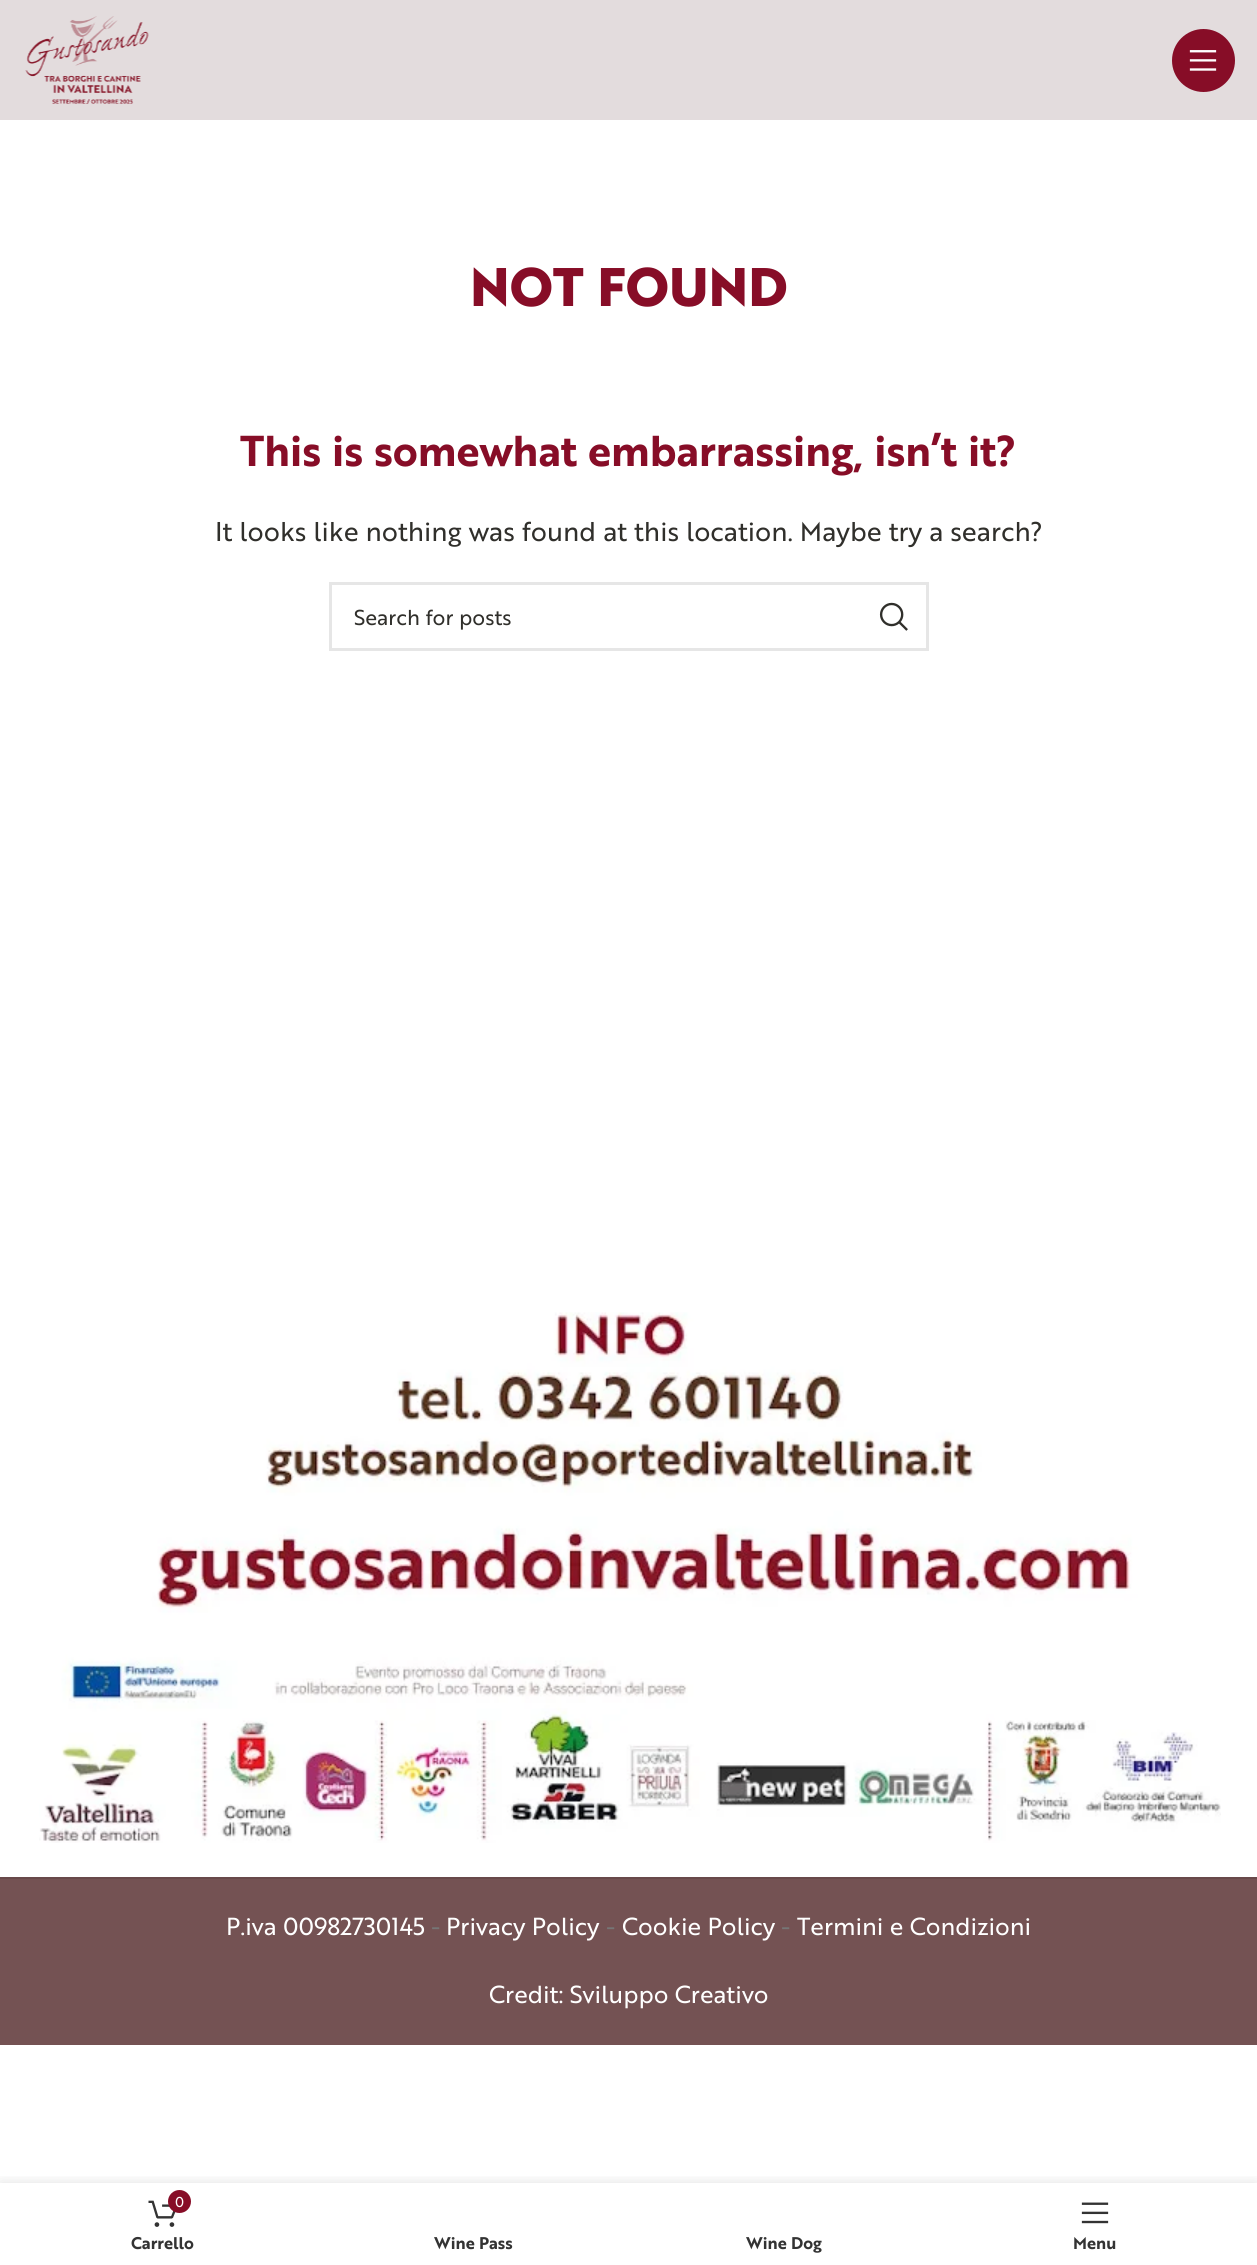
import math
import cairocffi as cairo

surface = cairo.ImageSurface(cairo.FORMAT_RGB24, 1257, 2265)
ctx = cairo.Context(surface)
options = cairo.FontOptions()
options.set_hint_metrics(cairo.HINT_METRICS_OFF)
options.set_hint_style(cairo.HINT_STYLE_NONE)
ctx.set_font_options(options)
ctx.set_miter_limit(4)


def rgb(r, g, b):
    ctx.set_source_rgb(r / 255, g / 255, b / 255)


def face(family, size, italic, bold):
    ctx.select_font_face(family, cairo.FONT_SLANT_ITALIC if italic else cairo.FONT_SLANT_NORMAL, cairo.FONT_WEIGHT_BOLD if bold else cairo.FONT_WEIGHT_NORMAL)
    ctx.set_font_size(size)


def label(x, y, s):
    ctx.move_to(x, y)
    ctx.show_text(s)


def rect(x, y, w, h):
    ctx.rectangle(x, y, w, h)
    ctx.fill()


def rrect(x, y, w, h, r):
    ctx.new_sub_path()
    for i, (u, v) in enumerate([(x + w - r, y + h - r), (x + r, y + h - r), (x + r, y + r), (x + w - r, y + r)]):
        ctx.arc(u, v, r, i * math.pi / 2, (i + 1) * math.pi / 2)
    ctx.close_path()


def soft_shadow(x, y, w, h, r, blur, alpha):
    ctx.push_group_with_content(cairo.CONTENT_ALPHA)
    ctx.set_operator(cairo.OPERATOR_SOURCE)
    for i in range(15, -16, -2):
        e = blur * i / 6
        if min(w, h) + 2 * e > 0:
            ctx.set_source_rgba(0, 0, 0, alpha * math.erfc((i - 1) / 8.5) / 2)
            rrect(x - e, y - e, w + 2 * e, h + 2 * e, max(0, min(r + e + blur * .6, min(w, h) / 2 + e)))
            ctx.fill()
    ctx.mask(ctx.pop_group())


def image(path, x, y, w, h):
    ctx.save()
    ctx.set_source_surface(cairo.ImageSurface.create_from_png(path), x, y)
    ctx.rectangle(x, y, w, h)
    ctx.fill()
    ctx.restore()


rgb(255, 255, 255)
ctx.paint()
rgb(227, 220, 221)
rect(0, 0, 1257, 120)
image('image0.png', 25, 16, 124, 88)
rgb(135, 13, 39)
ctx.arc(1203.5, 60.5, 31.5, 0, 2 * math.pi)
ctx.fill()
image('image1.png', 1189, 50, 28, 21)
face('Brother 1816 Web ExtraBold', 52.75, 0, 0)
label(470, 306, 'NOT FOUND')
face('Brother 1816 Web', 42, 0, 1)
label(240, 466, 'This is somewhat embarrassing, isn’t it?')
face('Brother 1816 Web', 26.4, 0, 0)
rgb(48, 47, 43)
label(215, 541, 'It looks like nothing was found at this location. Maybe try a search?')
ctx.rectangle(330.5, 583.5, 597, 66)
rgb(230, 230, 230)
ctx.set_line_width(3)
ctx.stroke()
face('Brother 1816 Web', 21, 0, 0)
rgb(48, 47, 43)
label(354, 625, 'Search for posts')
image('image2.png', 879, 602, 29, 29)
rgb(116, 82, 83)
rect(0, 1879, 1257, 166)
image('image3.png', 39, 1312, 1182, 531)
rgb(104, 73, 74)
rect(0, 1877, 1257, 2)
face('Brother 1816 Web', 24, 0, 0)
rgb(255, 255, 255)
label(226, 1935, 'P.iva 00982730145')
rgb(118, 118, 118)
label(431, 1935, '-')
rgb(255, 255, 255)
label(446, 1935, 'Privacy Policy')
rgb(118, 118, 118)
label(606, 1935, '-')
rgb(255, 255, 255)
label(622, 1935, 'Cookie Policy')
rgb(118, 118, 118)
label(781, 1935, '-')
rgb(255, 255, 255)
label(797, 1935, 'Termini e Condizioni')
label(489, 2003, 'Credit: Sviluppo Creativo')
ctx.save()
ctx.rectangle(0, 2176, 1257, 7)
ctx.clip()
rgb(0, 0, 0)
soft_shadow(0, 2183, 1257, 82, 0, 7, 0.12)
ctx.restore()
image('image4.png', 148, 2200, 28, 27)
rgb(135, 13, 39)
ctx.arc(179.5, 2201.5, 11.5, 0, 2 * math.pi)
ctx.fill()
face('Brother 1816 Web', 14, 0, 0)
rgb(255, 255, 255)
label(175, 2207, '0')
face('Brother 1816 Web', 16.5, 0, 1)
rgb(51, 51, 51)
label(131, 2249, 'Carrello')
label(434, 2249, 'Wine Pass')
label(746, 2249, 'Wine Dog')
image('image5.png', 1081, 2202, 28, 22)
label(1073, 2249, 'Menu')
surface.write_to_png('render.png')
